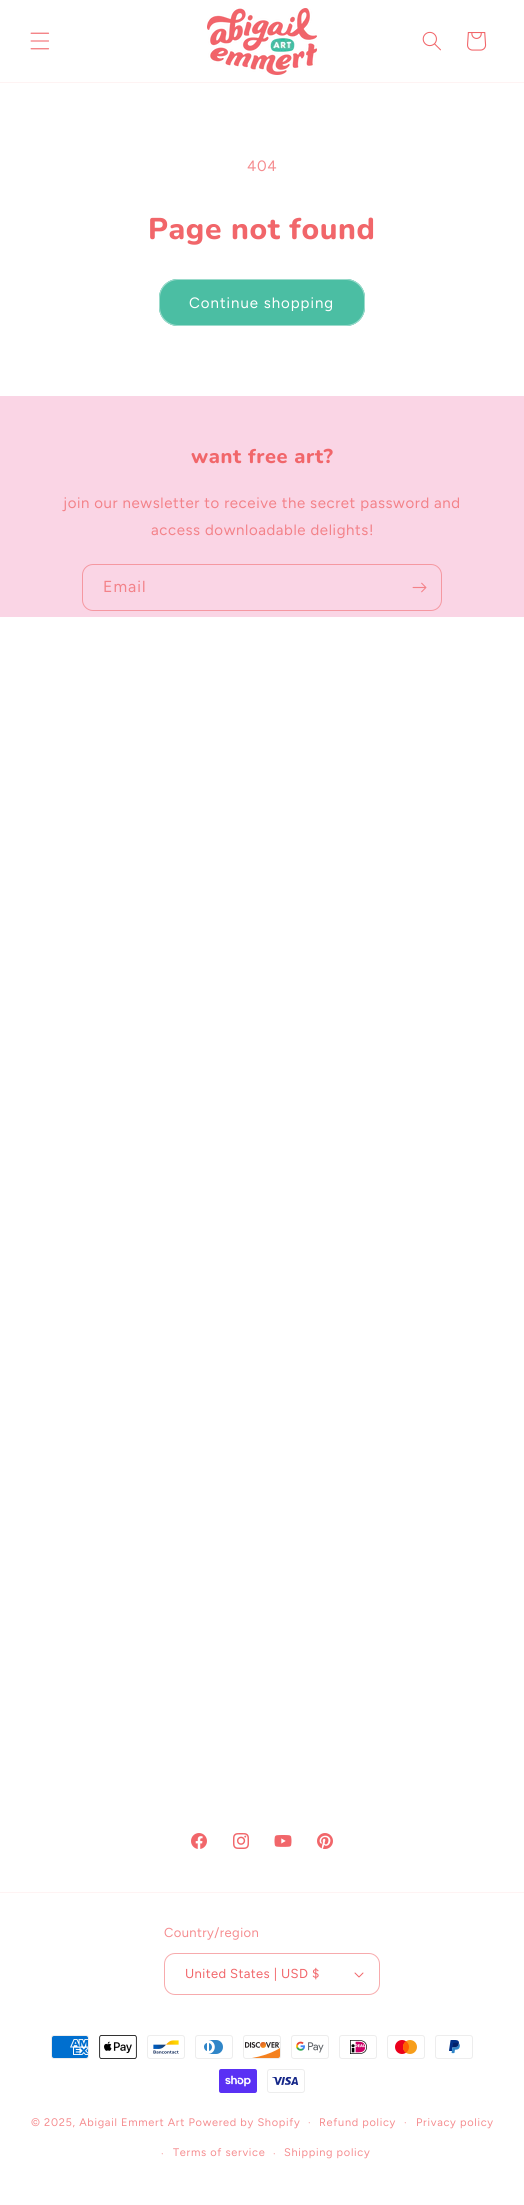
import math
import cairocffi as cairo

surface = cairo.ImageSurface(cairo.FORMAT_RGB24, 524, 2205)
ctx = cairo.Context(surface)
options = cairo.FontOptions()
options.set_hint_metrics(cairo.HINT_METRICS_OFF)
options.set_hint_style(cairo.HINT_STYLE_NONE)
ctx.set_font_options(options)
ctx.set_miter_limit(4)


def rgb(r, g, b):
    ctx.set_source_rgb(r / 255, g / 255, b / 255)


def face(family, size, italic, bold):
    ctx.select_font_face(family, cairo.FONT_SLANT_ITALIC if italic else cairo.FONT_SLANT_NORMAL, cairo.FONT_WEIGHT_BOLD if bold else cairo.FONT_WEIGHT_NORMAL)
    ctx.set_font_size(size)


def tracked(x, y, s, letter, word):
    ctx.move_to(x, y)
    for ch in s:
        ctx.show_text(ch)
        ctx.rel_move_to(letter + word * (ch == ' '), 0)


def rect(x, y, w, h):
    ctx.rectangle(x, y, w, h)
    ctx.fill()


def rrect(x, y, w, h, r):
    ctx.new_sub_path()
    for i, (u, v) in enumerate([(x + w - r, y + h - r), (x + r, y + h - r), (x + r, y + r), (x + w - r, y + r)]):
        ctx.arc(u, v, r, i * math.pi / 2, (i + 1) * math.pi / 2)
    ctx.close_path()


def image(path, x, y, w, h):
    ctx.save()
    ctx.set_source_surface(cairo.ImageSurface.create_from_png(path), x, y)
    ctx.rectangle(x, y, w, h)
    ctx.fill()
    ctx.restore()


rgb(255, 255, 255)
ctx.paint()
rgb(254, 243, 243)
rect(0, 82, 524, 1)
image('image0.png', 30, 32, 20, 18)
image('image1.png', 207, 8, 110, 67)
image('image2.png', 422, 31, 19, 20)
image('image3.png', 467, 32, 20, 19)
face('Figtree', 15, 0, 0)
rgb(245, 140, 143)
tracked(247, 171, '404', 0.6, 0)
face('Nunito ExtraBold', 30, 0, 0)
rgb(241, 102, 106)
tracked(148, 239, 'Page not found', 0.6, 0)
rgb(75, 190, 163)
rrect(159, 279, 206, 47, 19)
ctx.fill()
rrect(159.5, 279.5, 205, 46, 18.5)
ctx.set_line_width(1)
ctx.stroke()
rrect(159.5, 279.5, 205, 46, 18.5)
ctx.set_source_rgba(1, 1, 1, 0.45)
ctx.stroke()
face('Figtree', 15, 0, 0)
rgb(255, 255, 255)
tracked(189, 308, 'Continue shopping', 1, 0)
rgb(250, 213, 229)
rect(0, 396, 524, 221)
face('Nunito ExtraBold', 20, 0, 0)
rgb(241, 102, 106)
tracked(191, 463, 'want free art?', 0.6, 0)
face('Figtree', 15, 0, 0)
rgb(243, 130, 137)
tracked(63, 508, 'join our newsletter to receive the secret password and', 0.6, 0)
tracked(151, 535, 'access downloadable delights!', 0.6, 0)
rrect(82.5, 564.5, 359, 46, 10.5)
rgb(245, 152, 161)
ctx.stroke()
face('Figtree', 16, 0, 0)
rgb(243, 130, 137)
tracked(103, 592, 'Email', 1, 0)
image('image4.png', 412, 582, 15, 11)
image('image5.png', 191, 1833, 16, 16)
image('image6.png', 233, 1833, 16, 16)
image('image7.png', 274, 1835, 18, 12)
image('image8.png', 317, 1833, 16, 16)
rgb(254, 243, 243)
rect(0, 1892, 524, 1)
face('Figtree', 13, 0, 0)
rgb(245, 140, 143)
tracked(164, 1937, 'Country/region', 0.4, 0)
image('image9.png', 354, 1972, 10, 6)
rrect(164.5, 1953.5, 215, 41, 10.5)
rgb(247, 171, 173)
ctx.stroke()
rgb(241, 102, 106)
tracked(185, 1978, 'United States | USD $', 0.4, 0)
image('image10.png', 51, 2035, 38, 24)
image('image11.png', 99, 2035, 38, 24)
image('image12.png', 147, 2035, 38, 24)
image('image13.png', 195, 2035, 38, 24)
image('image14.png', 243, 2035, 38, 24)
image('image15.png', 291, 2035, 38, 24)
image('image16.png', 339, 2035, 38, 24)
image('image17.png', 387, 2035, 38, 24)
image('image18.png', 435, 2035, 38, 24)
image('image19.png', 219, 2069, 38, 24)
image('image20.png', 267, 2069, 38, 24)
face('Figtree', 11, 0, 0)
rgb(245, 140, 143)
tracked(31, 2126, '© 2025, Abigail Emmert Art Powered by Shopify', 0.7, 0)
face('Figtree', 10, 0, 0)
tracked(308, 2126, '·', 0.7, 0)
face('Figtree', 11, 0, 0)
tracked(319, 2126, 'Refund policy', 0.7, 0)
face('Figtree', 10, 0, 0)
tracked(404, 2126, '·', 0.7, 0)
face('Figtree', 11, 0, 0)
tracked(416, 2126, 'Privacy policy', 0.7, 0)
face('Figtree', 10, 0, 0)
tracked(161, 2157, '·', 0.7, 0)
face('Figtree', 11, 0, 0)
tracked(173, 2156, 'Terms of service', 0.7, 0)
face('Figtree', 10, 0, 0)
tracked(273, 2157, '·', 0.7, 0)
face('Figtree', 11, 0, 0)
tracked(284, 2156, 'Shipping policy', 0.7, 0)
surface.write_to_png('render.png')
